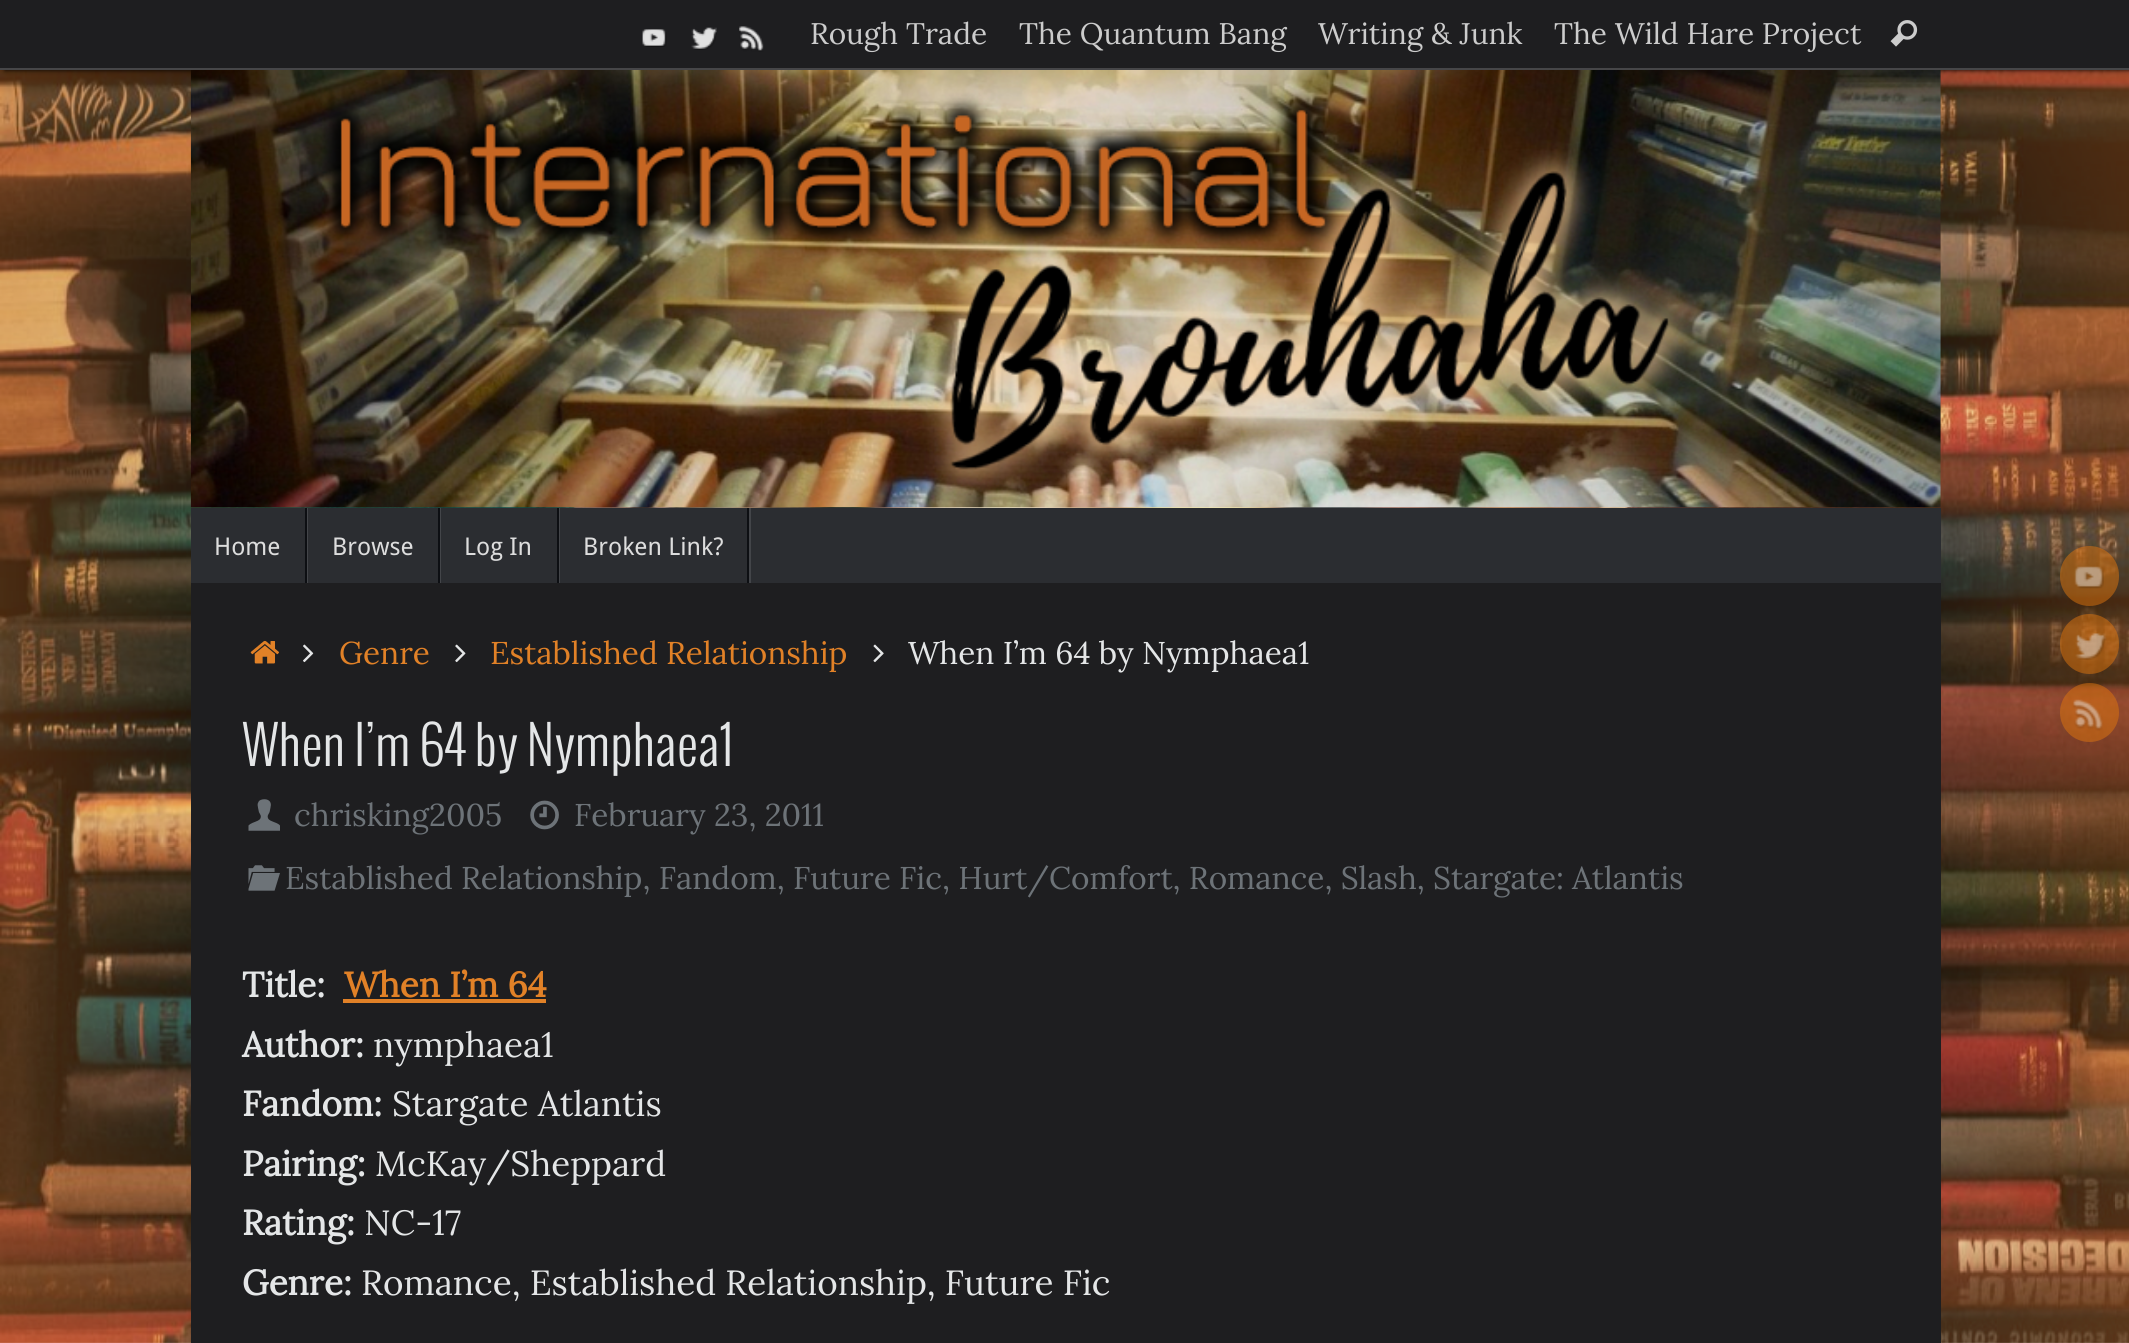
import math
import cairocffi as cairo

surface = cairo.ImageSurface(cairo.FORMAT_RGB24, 2129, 1343)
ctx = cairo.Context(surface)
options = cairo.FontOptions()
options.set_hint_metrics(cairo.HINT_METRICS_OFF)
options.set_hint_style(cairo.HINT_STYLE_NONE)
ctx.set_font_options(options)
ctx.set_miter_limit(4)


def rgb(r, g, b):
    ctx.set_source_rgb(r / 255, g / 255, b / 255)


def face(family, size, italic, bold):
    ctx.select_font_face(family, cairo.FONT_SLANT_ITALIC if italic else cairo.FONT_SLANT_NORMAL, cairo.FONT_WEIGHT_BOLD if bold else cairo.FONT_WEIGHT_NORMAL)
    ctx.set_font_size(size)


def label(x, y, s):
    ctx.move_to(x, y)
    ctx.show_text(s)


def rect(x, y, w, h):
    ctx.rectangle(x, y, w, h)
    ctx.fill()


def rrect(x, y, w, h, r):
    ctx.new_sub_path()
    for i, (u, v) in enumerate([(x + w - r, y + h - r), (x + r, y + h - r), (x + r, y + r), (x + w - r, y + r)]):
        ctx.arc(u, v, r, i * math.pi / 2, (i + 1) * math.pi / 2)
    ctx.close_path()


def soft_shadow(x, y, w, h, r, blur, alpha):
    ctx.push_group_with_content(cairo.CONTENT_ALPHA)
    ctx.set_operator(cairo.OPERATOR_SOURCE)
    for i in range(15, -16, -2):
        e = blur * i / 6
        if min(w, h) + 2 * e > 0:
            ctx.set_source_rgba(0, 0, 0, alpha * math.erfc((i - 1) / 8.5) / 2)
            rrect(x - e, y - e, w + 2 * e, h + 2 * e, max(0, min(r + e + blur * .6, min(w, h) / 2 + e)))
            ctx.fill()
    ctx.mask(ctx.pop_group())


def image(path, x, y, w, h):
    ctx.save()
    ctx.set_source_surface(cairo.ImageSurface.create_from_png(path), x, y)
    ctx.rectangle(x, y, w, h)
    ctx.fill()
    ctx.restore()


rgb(255, 255, 255)
ctx.paint()
image('image0.png', 0, 70, 2129, 1273)
rgb(0, 0, 0)
soft_shadow(5, 0, 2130, 70, 0, 2.5, 1)
rgb(30, 30, 32)
rect(0, 0, 2129, 68)
rgb(70, 70, 72)
rect(0, 68, 2129, 2)
image('image1.png', 642, 29, 25, 18)
image('image2.png', 691, 27, 26, 23)
image('image3.png', 739, 26, 25, 26)
face('Lora', 29.75, 0, 0)
rgb(204, 204, 204)
label(810, 44, 'Rough Trade')
label(1019, 44, 'The Quantum Bang')
label(1318, 44, 'Writing & Junk')
label(1554, 44, 'The Wild Hare Project')
image('image4.png', 1890, 20, 28, 27)
image('image5.png', 190, 70, 1751, 438)
rgb(43, 45, 49)
rect(191, 508, 1750, 75)
rgb(67, 69, 73)
ctx.new_path()
ctx.move_to(193, 583)
ctx.line_to(308, 583)
ctx.line_to(308, 508)
ctx.line_to(306, 508)
ctx.line_to(306, 583)
ctx.close_path()
ctx.fill()
rgb(13, 15, 19)
rect(305, 508, 2, 75)
face('Droid Sans', 24.5, 0, 0)
rgb(221, 221, 221)
label(214, 555, 'Home')
rgb(67, 69, 73)
ctx.new_path()
ctx.move_to(308, 583)
ctx.line_to(441, 583)
ctx.line_to(441, 508)
ctx.line_to(439, 508)
ctx.line_to(439, 583)
ctx.close_path()
ctx.fill()
rgb(13, 15, 19)
rect(438, 508, 2, 75)
rgb(221, 221, 221)
label(332, 555, 'Browse')
rgb(67, 69, 73)
ctx.new_path()
ctx.move_to(441, 583)
ctx.line_to(560, 583)
ctx.line_to(560, 508)
ctx.line_to(558, 508)
ctx.line_to(558, 583)
ctx.close_path()
ctx.fill()
rgb(13, 15, 19)
rect(557, 508, 2, 75)
rgb(221, 221, 221)
label(464, 555, 'Log In')
rgb(67, 69, 73)
ctx.new_path()
ctx.move_to(560, 583)
ctx.line_to(751, 583)
ctx.line_to(751, 508)
ctx.line_to(749, 508)
ctx.line_to(749, 583)
ctx.close_path()
ctx.fill()
rgb(13, 15, 19)
rect(747, 508, 2, 75)
rgb(221, 221, 221)
label(583, 555, 'Broken Link?')
ctx.set_source_rgba(0.882, 0.463, 0.059, 0.5)
rrect(2060, 546, 59, 60, 29.5)
ctx.fill()
image('image6.png', 2074, 566, 30, 23)
rrect(2060, 614, 59, 60, 29.5)
ctx.fill()
image('image7.png', 2075, 633, 32, 27)
ctx.arc(2089.5, 712.5, 29.5, 0, 2 * math.pi)
ctx.fill()
image('image8.png', 2073, 699, 30, 32)
rgb(30, 30, 32)
rect(191, 583, 1750, 760)
image('image9.png', 250, 640, 29, 24)
image('image10.png', 303, 644, 11, 19)
face('Lora', 31.5, 0, 0)
rgb(225, 129, 39)
label(339, 664, 'Genre')
image('image11.png', 455, 644, 11, 19)
label(490, 664, 'Established Relationship')
image('image12.png', 873, 644, 11, 19)
rgb(228, 230, 231)
label(908, 664, 'When I’m 64 by Nymphaea1')
face('Oswald Light', 52.5, 0, 0)
label(242, 766, 'When I’m 64 by Nymphaea1')
image('image13.png', 248, 799, 32, 32)
face('Lora', 31.5, 0, 0)
rgb(109, 115, 120)
label(294, 826, 'chrisking2005')
image('image14.png', 530, 800, 29, 30)
label(574, 826, 'February 23, 2011')
image('image15.png', 248, 865, 32, 26)
label(285, 889, 'Established Relationship, Fandom, Future Fic, Hurt/Comfort, Romance, Slash, Stargate: Atlantis')
face('Lora', 35, 0, 1)
rgb(228, 230, 231)
label(242, 997, 'Title:')
rgb(225, 129, 39)
label(344, 997, 'When I’m 64')
rect(343, 999, 203, 4)
rgb(228, 230, 231)
label(242, 1057, 'Author:')
face('Lora', 35, 0, 0)
label(373, 1057, 'nymphaea1')
face('Lora', 35, 0, 1)
label(242, 1116, 'Fandom:')
face('Lora', 35, 0, 0)
label(392, 1116, 'Stargate Atlantis')
face('Lora', 35, 0, 1)
label(242, 1176, 'Pairing:')
face('Lora', 35, 0, 0)
label(375, 1176, 'McKay/Sheppard')
face('Lora', 35, 0, 1)
label(242, 1235, 'Rating:')
face('Lora', 35, 0, 0)
label(364, 1235, 'NC-17')
face('Lora', 35, 0, 1)
label(242, 1295, 'Genre:')
face('Lora', 35, 0, 0)
label(361, 1295, 'Romance, Established Relationship, Future Fic')
surface.write_to_png('render.png')
